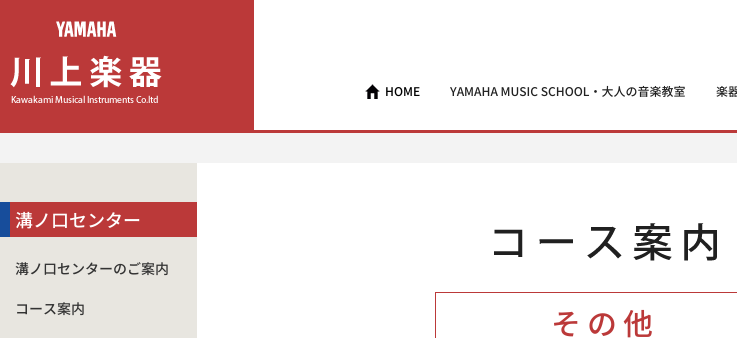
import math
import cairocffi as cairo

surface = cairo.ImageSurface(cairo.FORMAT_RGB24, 737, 338)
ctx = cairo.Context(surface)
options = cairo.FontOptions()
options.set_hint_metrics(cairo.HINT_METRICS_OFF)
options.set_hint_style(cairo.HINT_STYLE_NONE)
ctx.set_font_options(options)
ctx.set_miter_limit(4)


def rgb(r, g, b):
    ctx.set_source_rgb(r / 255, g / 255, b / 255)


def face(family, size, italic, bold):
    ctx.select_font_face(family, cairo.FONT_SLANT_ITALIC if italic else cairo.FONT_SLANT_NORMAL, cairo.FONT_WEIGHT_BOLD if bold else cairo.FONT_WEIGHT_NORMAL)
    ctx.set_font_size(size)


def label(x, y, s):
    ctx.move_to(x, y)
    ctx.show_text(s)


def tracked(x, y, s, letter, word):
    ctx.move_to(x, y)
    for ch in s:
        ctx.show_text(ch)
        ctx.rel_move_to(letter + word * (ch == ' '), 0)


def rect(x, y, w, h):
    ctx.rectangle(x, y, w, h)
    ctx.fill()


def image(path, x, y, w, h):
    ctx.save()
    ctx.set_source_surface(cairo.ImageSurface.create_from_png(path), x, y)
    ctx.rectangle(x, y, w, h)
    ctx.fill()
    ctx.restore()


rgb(255, 255, 255)
ctx.paint()
rgb(187, 57, 57)
rect(0, 130, 737, 3)
rect(0, 0, 254, 130)
image('image0.png', 56, 21, 61, 16)
image('image1.png', 10, 55, 152, 48)
image('image2.png', 365, 84, 15, 15)
face('Noto Sans JP Medium', 12, 0, 0)
rgb(0, 0, 0)
label(385, 96, 'HOME')
rgb(34, 34, 34)
label(450, 96, 'YAMAHA MUSIC SCHOOL・大人の音楽教室')
label(716, 96, '楽器')
rgb(243, 243, 243)
rect(0, 133, 737, 30)
rgb(232, 230, 224)
rect(0, 163, 197, 175)
rgb(187, 57, 57)
rect(10, 202, 187, 35)
rgb(23, 77, 155)
rect(0, 202, 10, 35)
face('Noto Sans JP Medium', 18, 0, 0)
rgb(255, 255, 255)
label(15, 227, '溝ノ口センター')
face('Noto Sans JP Medium', 14, 0, 0)
rgb(51, 51, 51)
label(15, 274, '溝ノ口センターのご案内')
label(15, 314, 'コース案内')
image('image3.png', 494, 223, 223, 38)
ctx.rectangle(435.5, 292.5, 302, 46)
rgb(187, 57, 57)
ctx.set_line_width(1)
ctx.stroke()
face('Noto Sans JP Medium', 30, 0, 0)
tracked(551, 335, 'その他', 6, 0)
surface.write_to_png('render.png')
